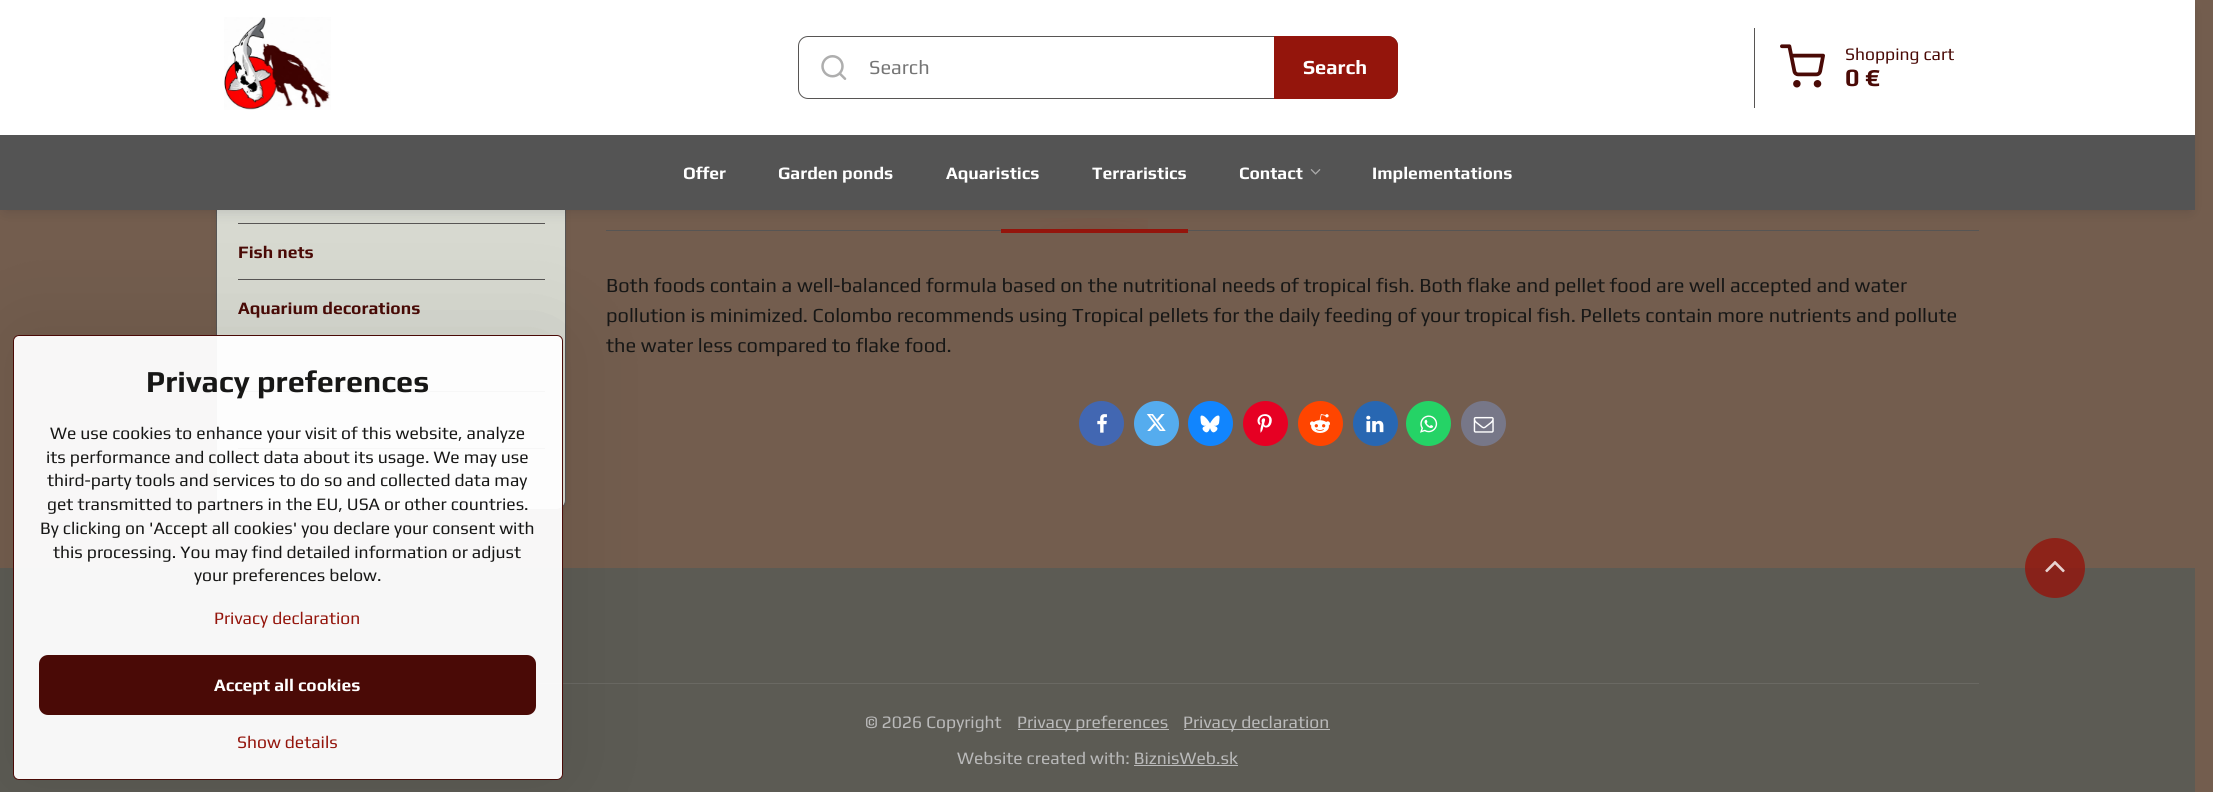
import math
import cairocffi as cairo

surface = cairo.ImageSurface(cairo.FORMAT_RGB24, 2213, 792)
ctx = cairo.Context(surface)
options = cairo.FontOptions()
options.set_hint_metrics(cairo.HINT_METRICS_OFF)
options.set_hint_style(cairo.HINT_STYLE_NONE)
ctx.set_font_options(options)
ctx.set_miter_limit(4)


def rgb(r, g, b):
    ctx.set_source_rgb(r / 255, g / 255, b / 255)


def face(family, size, italic, bold):
    ctx.select_font_face(family, cairo.FONT_SLANT_ITALIC if italic else cairo.FONT_SLANT_NORMAL, cairo.FONT_WEIGHT_BOLD if bold else cairo.FONT_WEIGHT_NORMAL)
    ctx.set_font_size(size)


def label(x, y, s):
    ctx.move_to(x, y)
    ctx.show_text(s)


def rect(x, y, w, h):
    ctx.rectangle(x, y, w, h)
    ctx.fill()


def rrect(x, y, w, h, r):
    ctx.new_sub_path()
    for i, (u, v) in enumerate([(x + w - r, y + h - r), (x + r, y + h - r), (x + r, y + r), (x + w - r, y + r)]):
        ctx.arc(u, v, r, i * math.pi / 2, (i + 1) * math.pi / 2)
    ctx.close_path()


def soft_shadow(x, y, w, h, r, blur, alpha):
    ctx.push_group_with_content(cairo.CONTENT_ALPHA)
    ctx.set_operator(cairo.OPERATOR_SOURCE)
    for i in range(15, -16, -2):
        e = blur * i / 6
        if min(w, h) + 2 * e > 0:
            ctx.set_source_rgba(0, 0, 0, alpha * math.erfc((i - 1) / 8.5) / 2)
            rrect(x - e, y - e, w + 2 * e, h + 2 * e, max(0, min(r + e + blur * .6, min(w, h) / 2 + e)))
            ctx.fill()
    ctx.mask(ctx.pop_group())


def image(path, x, y, w, h):
    ctx.save()
    ctx.set_source_surface(cairo.ImageSurface.create_from_png(path), x, y)
    ctx.rectangle(x, y, w, h)
    ctx.fill()
    ctx.restore()


rgb(115, 93, 78)
ctx.paint()
rgb(0, 0, 20)
soft_shadow(226, -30, 330, 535, 0, 10, 0.15)
rgb(215, 217, 208)
rrect(216.5, -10.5, 349, 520, 9.5)
ctx.fill_preserve()
rgb(87, 85, 84)
ctx.set_line_width(1)
ctx.stroke()
rect(238, 223, 307, 1)
rect(606, 230, 1373, 1)
rgb(148, 21, 12)
ctx.new_path()
ctx.move_to(1001, 164)
ctx.line_to(1001, 233)
ctx.line_to(1188, 233)
ctx.line_to(1188, 164)
ctx.line_to(1188, 230)
ctx.line_to(1001, 230)
ctx.close_path()
ctx.fill()
gradient = cairo.RadialGradient(0, 0, 0, 0, 0, 1)
gradient.set_matrix(cairo.Matrix(1 / 93, 0, 0, 1 / 20, -1 * 1094 / 93, -1 * 230 / 20))
gradient.add_color_stop_rgba(0, 0.463, 0.341, 0.282, 1)
gradient.add_color_stop_rgba(1, 0.451, 0.365, 0.306, 1)
ctx.set_source(gradient)
rect(1040, 218, 108, 11)
rgb(148, 21, 12)
rect(1001, 229, 187, 1)
rgb(0, 0, 20)
soft_shadow(5, 10, 2185, 200, 0, 7.5, 0.15)
rgb(255, 255, 255)
rect(0, 0, 2195, 135)
image('image0.png', 224, 17, 107, 93)
rrect(798.5, 36.5, 599, 62, 9.5)
rgb(87, 85, 84)
ctx.stroke()
image('image1.png', 821, 55, 26, 25)
face('Play', 20, 0, 0)
rgb(117, 117, 117)
label(869, 74, 'Search')
rgb(148, 21, 12)
ctx.new_path()
ctx.move_to(1274, 36)
ctx.line_to(1388, 36)
ctx.curve_to(1393.5, 36, 1398, 40.5, 1398, 46)
ctx.line_to(1398, 89)
ctx.curve_to(1398, 94.5, 1393.5, 99, 1388, 99)
ctx.line_to(1274, 99)
ctx.close_path()
ctx.fill()
face('Play', 20, 0, 1)
rgb(255, 255, 255)
label(1303, 74, 'Search')
rgb(87, 85, 84)
rect(1754, 28, 1, 80)
image('image2.png', 1780, 44, 45, 44)
face('Play', 17.5, 0, 0)
rgb(74, 10, 6)
label(1845, 60, 'Shopping cart')
face('Play', 25, 0, 1)
label(1845, 86, '0 €')
rgb(84, 84, 84)
rect(0, 135, 2195, 75)
face('Play', 17.5, 0, 1)
rgb(255, 255, 255)
label(683, 179, 'Offer')
label(778, 179, 'Garden ponds')
label(946, 179, 'Aquaristics')
label(1092, 179, 'Terraristics')
label(1239, 179, 'Contact')
image('image3.png', 1310, 169, 11, 6)
label(1372, 179, 'Implementations')
rgb(87, 85, 84)
rect(238, 279, 307, 1)
rgb(74, 10, 6)
label(238, 258, 'Fish nets')
label(238, 314, 'Aquarium decorations')
rgb(87, 85, 84)
rect(238, 391, 307, 1)
rect(238, 448, 307, 1)
face('Play', 20, 0, 0)
rgb(23, 23, 22)
label(606, 292, 'Both foods contain a well-balanced formula based on the nutritional needs of tropical fish. Both flake and pellet food are well accepted and water')
label(606, 322, 'pollution is minimized. Colombo recommends using Tropical pellets for the daily feeding of your tropical fish. Pellets contain more nutrients and pollute')
label(606, 352, 'the water less compared to flake food.')
rgb(66, 103, 178)
ctx.new_path()
ctx.arc(1101.5, 423.5, 22.5, 0, 2 * math.pi)
ctx.fill()
image('image4.png', 1097, 414, 10, 19)
rgb(85, 172, 238)
ctx.arc(1156.5, 423.5, 22.5, 0, 2 * math.pi)
ctx.fill()
image('image5.png', 1146, 414, 20, 17)
rgb(17, 133, 254)
ctx.arc(1210.5, 423.5, 22.5, 0, 2 * math.pi)
ctx.fill()
image('image6.png', 1200, 415, 20, 18)
rgb(230, 0, 35)
ctx.arc(1265.5, 423.5, 22.5, 0, 2 * math.pi)
ctx.fill()
image('image7.png', 1257, 414, 15, 19)
rgb(255, 69, 0)
ctx.arc(1320.5, 423.5, 22.5, 0, 2 * math.pi)
ctx.fill()
image('image8.png', 1310, 414, 20, 19)
rgb(40, 103, 178)
ctx.arc(1375.5, 423.5, 22.5, 0, 2 * math.pi)
ctx.fill()
image('image9.png', 1366, 415, 18, 18)
rgb(37, 211, 102)
ctx.arc(1428.5, 423.5, 22.5, 0, 2 * math.pi)
ctx.fill()
image('image10.png', 1420, 415, 18, 18)
rgb(119, 119, 136)
ctx.arc(1483.5, 423.5, 22.5, 0, 2 * math.pi)
ctx.fill()
image('image11.png', 1473, 416, 21, 17)
rgb(92, 91, 84)
rect(0, 568, 2195, 224)
ctx.set_source_rgba(0.58, 0.082, 0.047, 0.8)
ctx.arc(2055, 568, 30, 0, 2 * math.pi)
ctx.fill()
image('image12.png', 2045, 561, 20, 12)
rgb(106, 105, 99)
rect(536, 683, 1443, 1)
face('Play', 17.5, 0, 0)
rgb(186, 186, 186)
label(865, 728, '© 2026 Copyright')
rect(1018, 729, 151, 1)
label(1017, 728, 'Privacy preferences')
rect(1184, 729, 146, 1)
label(1183, 728, 'Privacy declaration')
label(957, 764, 'Website created with: BiznisWeb.sk')
rect(1134, 765, 104, 1)
ctx.save()
ctx.set_fill_rule(cairo.FILL_RULE_EVEN_ODD)
ctx.new_path()
ctx.move_to(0, 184)
ctx.line_to(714, 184)
ctx.line_to(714, 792)
ctx.line_to(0, 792)
ctx.close_path()
ctx.move_to(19, 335)
ctx.line_to(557, 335)
ctx.curve_to(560.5, 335, 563, 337.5, 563, 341)
ctx.line_to(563, 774)
ctx.curve_to(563, 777.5, 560.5, 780, 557, 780)
ctx.line_to(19, 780)
ctx.curve_to(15.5, 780, 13, 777.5, 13, 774)
ctx.line_to(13, 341)
ctx.curve_to(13, 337.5, 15.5, 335, 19, 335)
ctx.close_path()
ctx.clip()
rgb(0, 0, 0)
soft_shadow(13, 335, 550, 445, 6, 50, 0.1)
ctx.restore()
ctx.set_source_rgba(1, 1, 1, 0.95)
rrect(13.5, 335.5, 549, 444, 5.5)
ctx.fill_preserve()
rgb(74, 10, 6)
ctx.stroke()
face('Play', 30.6, 0, 1)
rgb(23, 23, 22)
label(146, 392, 'Privacy preferences')
face('Play', 17.5, 0, 0)
label(50, 439, 'We use cookies to enhance your visit of this website, analyze')
label(46, 463, 'its performance and collect data about its usage. We may use')
label(47, 486, 'third-party tools and services to do so and collected data may')
label(47, 510, 'get transmitted to partners in the EU, USA or other countries.')
label(40, 534, 'By clicking on \'Accept all cookies\' you declare your consent with')
label(53, 558, 'this processing. You may find detailed information or adjust')
label(194, 581, 'your preferences below.')
rgb(148, 21, 12)
label(214, 624, 'Privacy declaration')
rgb(74, 10, 6)
rrect(39, 655, 497, 60, 9)
ctx.fill()
face('Play', 17.5, 0, 1)
rgb(255, 255, 255)
label(214, 691, 'Accept all cookies')
face('Play', 17.5, 0, 0)
rgb(148, 21, 12)
label(237, 748, 'Show details')
surface.write_to_png('render.png')
